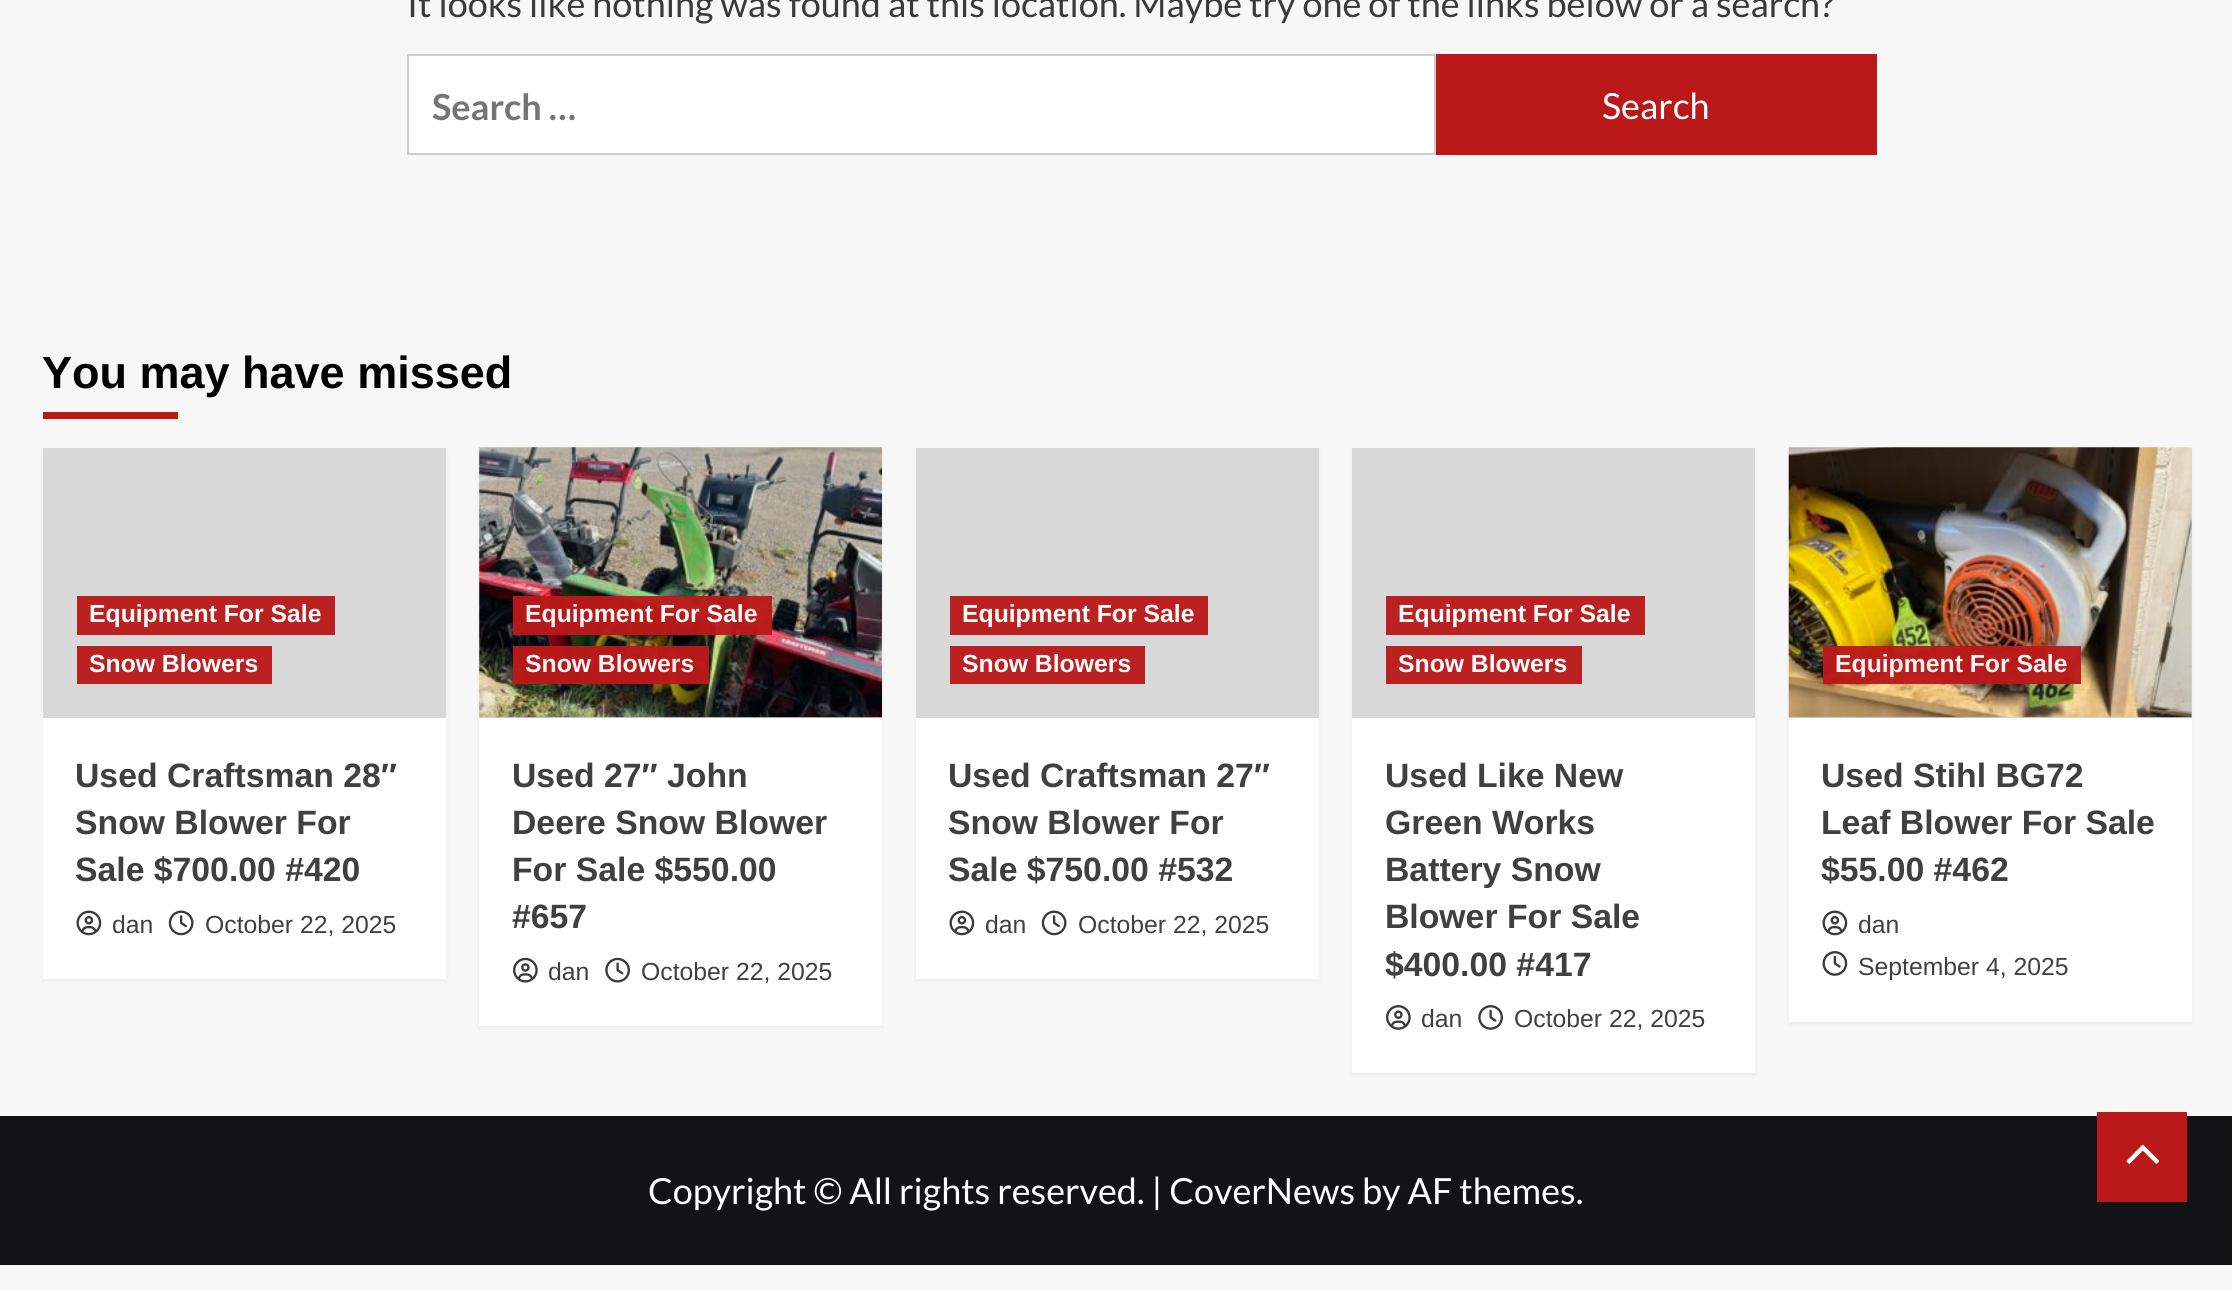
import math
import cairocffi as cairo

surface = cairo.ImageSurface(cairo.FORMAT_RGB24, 2232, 1290)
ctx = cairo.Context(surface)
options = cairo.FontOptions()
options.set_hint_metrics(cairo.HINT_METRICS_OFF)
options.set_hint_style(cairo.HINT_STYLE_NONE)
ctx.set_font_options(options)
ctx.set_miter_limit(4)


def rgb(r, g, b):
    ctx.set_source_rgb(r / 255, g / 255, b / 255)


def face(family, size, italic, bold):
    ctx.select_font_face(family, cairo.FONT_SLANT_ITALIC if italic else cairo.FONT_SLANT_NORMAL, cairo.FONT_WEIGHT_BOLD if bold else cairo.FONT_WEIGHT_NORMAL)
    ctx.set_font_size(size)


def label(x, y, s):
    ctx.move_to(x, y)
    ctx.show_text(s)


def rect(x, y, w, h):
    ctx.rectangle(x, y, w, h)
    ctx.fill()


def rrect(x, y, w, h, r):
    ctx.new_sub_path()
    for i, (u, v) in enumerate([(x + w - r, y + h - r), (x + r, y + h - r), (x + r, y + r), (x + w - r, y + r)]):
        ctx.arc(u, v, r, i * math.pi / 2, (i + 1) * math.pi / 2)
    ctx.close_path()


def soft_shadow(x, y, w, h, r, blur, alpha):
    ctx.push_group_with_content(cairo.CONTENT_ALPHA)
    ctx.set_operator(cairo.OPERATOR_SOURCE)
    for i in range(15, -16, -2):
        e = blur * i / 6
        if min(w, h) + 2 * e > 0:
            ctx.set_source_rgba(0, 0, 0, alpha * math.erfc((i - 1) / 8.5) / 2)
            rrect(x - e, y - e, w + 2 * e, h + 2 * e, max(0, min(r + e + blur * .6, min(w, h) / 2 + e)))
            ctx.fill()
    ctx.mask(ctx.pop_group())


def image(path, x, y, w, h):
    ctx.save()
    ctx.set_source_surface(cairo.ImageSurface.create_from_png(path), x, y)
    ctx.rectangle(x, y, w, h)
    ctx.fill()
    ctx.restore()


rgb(247, 247, 247)
ctx.paint()
face('Lato', 36, 0, 0)
rgb(58, 58, 58)
label(407, 17, 'It looks like nothing was found at this location. Maybe try one of the links below or a search?')
rgb(255, 255, 255)
ctx.rectangle(408, 55, 1027, 99)
ctx.fill_preserve()
rgb(204, 204, 204)
ctx.stroke()
face('Lato', 36, 0, 1)
rgb(117, 117, 117)
label(432, 120, 'Search …')
rgb(187, 25, 25)
rect(1436, 54, 441, 101)
face('Lato', 36, 0, 0)
rgb(255, 255, 255)
label(1602, 119, 'Search')
face('Liberation Sans', 45, 0, 1)
rgb(0, 0, 0)
label(42, 388, 'You may have missed')
rgb(187, 25, 25)
rect(43, 412, 135, 7)
rgb(0, 0, 0)
soft_shadow(43, 450, 403, 531, 0, 2, 0.05)
rgb(255, 255, 255)
rect(43, 718, 403, 261)
rgb(216, 216, 216)
rect(43, 448, 403, 270)
rgb(188, 33, 33)
rect(77, 596, 258, 39)
face('Liberation Sans', 24.75, 0, 1)
rgb(255, 255, 255)
label(89, 622, 'Equipment For Sale')
rgb(188, 33, 33)
rect(77, 646, 195, 38)
rgb(255, 255, 255)
label(89, 672, 'Snow Blowers')
face('Liberation Sans', 33.75, 0, 1)
rgb(64, 64, 64)
label(75, 787, 'Used Craftsman 28″')
label(75, 834, 'Snow Blower For')
label(75, 881, 'Sale $700.00 #420')
image('image0.png', 76, 910, 26, 26)
face('Liberation Sans', 24.75, 0, 0)
label(112, 933, 'dan')
image('image1.png', 168, 910, 26, 26)
label(205, 933, 'October 22, 2025')
rgb(0, 0, 0)
soft_shadow(479, 450, 403, 578, 0, 2, 0.05)
rgb(255, 255, 255)
rect(479, 718, 403, 308)
rgb(216, 216, 216)
rect(479, 448, 403, 270)
image('image2.png', 479, 447, 403, 271)
ctx.set_source_rgba(0.733, 0.098, 0.098, 0.96)
rect(513, 596, 259, 39)
face('Liberation Sans', 24.75, 0, 1)
rgb(252, 246, 246)
label(525, 622, 'Equipment For Sale')
ctx.set_source_rgba(0.733, 0.098, 0.098, 0.96)
rect(513, 646, 196, 38)
rgb(252, 246, 246)
label(525, 672, 'Snow Blowers')
face('Liberation Sans', 33.75, 0, 1)
rgb(64, 64, 64)
label(512, 787, 'Used 27″ John')
label(512, 834, 'Deere Snow Blower')
label(512, 881, 'For Sale $550.00')
label(512, 928, '#657')
image('image3.png', 513, 957, 25, 26)
face('Liberation Sans', 24.75, 0, 0)
label(548, 980, 'dan')
image('image4.png', 605, 957, 25, 26)
label(641, 980, 'October 22, 2025')
rgb(0, 0, 0)
soft_shadow(916, 450, 403, 531, 0, 2, 0.05)
rgb(255, 255, 255)
rect(916, 718, 403, 261)
rgb(216, 216, 216)
rect(916, 448, 403, 270)
rgb(188, 33, 33)
rect(950, 596, 258, 39)
face('Liberation Sans', 24.75, 0, 1)
rgb(255, 255, 255)
label(962, 622, 'Equipment For Sale')
rgb(188, 33, 33)
rect(950, 646, 195, 38)
rgb(255, 255, 255)
label(962, 672, 'Snow Blowers')
face('Liberation Sans', 33.75, 0, 1)
rgb(64, 64, 64)
label(948, 787, 'Used Craftsman 27″')
label(948, 834, 'Snow Blower For')
label(948, 881, 'Sale $750.00 #532')
image('image5.png', 949, 910, 26, 26)
face('Liberation Sans', 24.75, 0, 0)
label(985, 933, 'dan')
image('image1.png', 1041, 910, 26, 26)
label(1078, 933, 'October 22, 2025')
rgb(0, 0, 0)
soft_shadow(1352, 450, 403, 626, 0, 2, 0.05)
rgb(255, 255, 255)
rect(1352, 718, 403, 355)
rgb(216, 216, 216)
rect(1352, 448, 403, 270)
rgb(188, 33, 33)
rect(1386, 596, 259, 39)
face('Liberation Sans', 24.75, 0, 1)
rgb(255, 255, 255)
label(1398, 622, 'Equipment For Sale')
rgb(188, 33, 33)
rect(1386, 646, 196, 38)
rgb(255, 255, 255)
label(1398, 672, 'Snow Blowers')
face('Liberation Sans', 33.75, 0, 1)
rgb(64, 64, 64)
label(1385, 787, 'Used Like New')
label(1385, 834, 'Green Works')
label(1385, 881, 'Battery Snow')
label(1385, 928, 'Blower For Sale')
label(1385, 976, '$400.00 #417')
image('image6.png', 1386, 1005, 25, 25)
face('Liberation Sans', 24.75, 0, 0)
label(1421, 1027, 'dan')
image('image7.png', 1478, 1005, 25, 25)
label(1514, 1027, 'October 22, 2025')
rgb(0, 0, 0)
soft_shadow(1789, 450, 403, 574, 0, 2, 0.05)
rgb(255, 255, 255)
rect(1789, 718, 403, 304)
rgb(216, 216, 216)
rect(1789, 448, 403, 270)
image('image8.png', 1788, 447, 404, 271)
ctx.set_source_rgba(0.733, 0.098, 0.098, 0.96)
rect(1823, 646, 258, 38)
face('Liberation Sans', 24.75, 0, 1)
rgb(252, 246, 246)
label(1835, 672, 'Equipment For Sale')
face('Liberation Sans', 33.75, 0, 1)
rgb(64, 64, 64)
label(1821, 787, 'Used Stihl BG72')
label(1821, 834, 'Leaf Blower For Sale')
label(1821, 881, '$55.00 #462')
image('image5.png', 1822, 910, 26, 26)
face('Liberation Sans', 24.75, 0, 0)
label(1858, 933, 'dan')
image('image9.png', 1822, 951, 26, 25)
label(1858, 975, 'September 4, 2025')
rgb(18, 19, 20)
rect(0, 1116, 2232, 149)
face('Lato', 36, 0, 0)
rgb(255, 255, 255)
label(648, 1204, 'Copyright © All rights reserved. | CoverNews by AF themes.')
rgb(187, 25, 25)
rect(2097, 1112, 90, 90)
image('image10.png', 2126, 1144, 33, 20)
surface.write_to_png('render.png')
